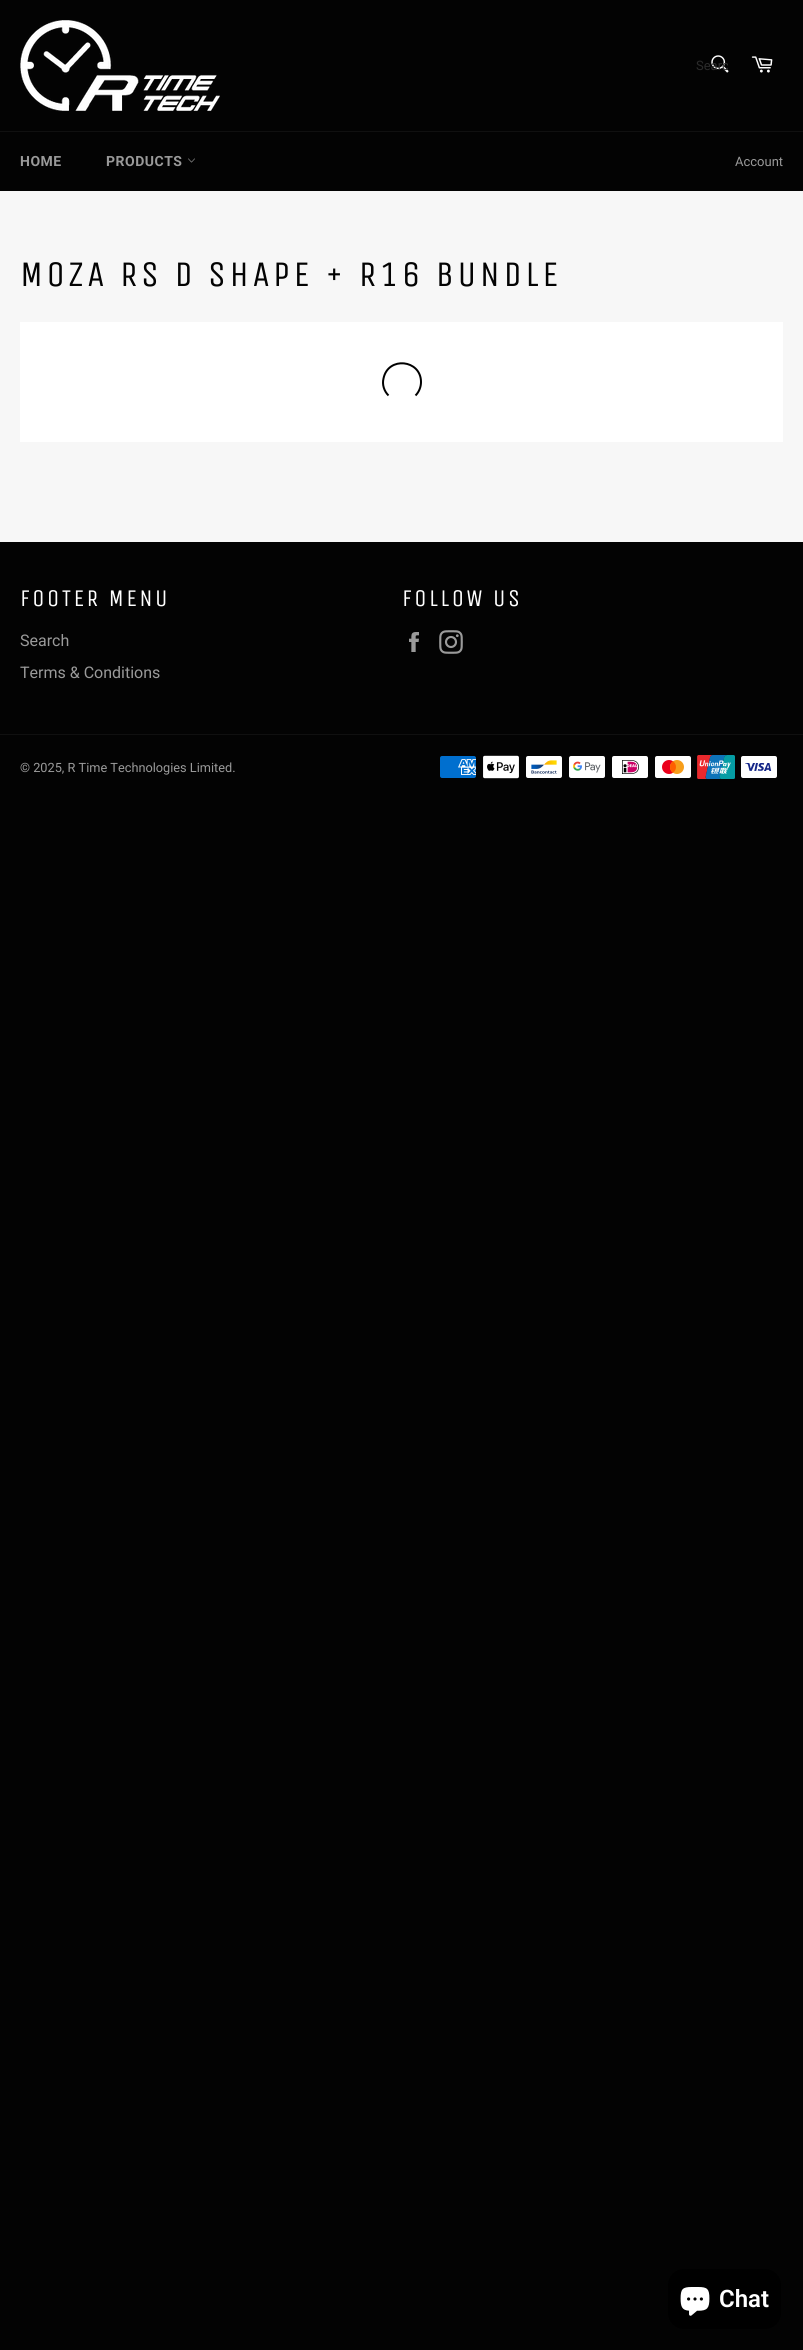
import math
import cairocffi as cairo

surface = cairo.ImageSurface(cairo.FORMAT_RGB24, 803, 2350)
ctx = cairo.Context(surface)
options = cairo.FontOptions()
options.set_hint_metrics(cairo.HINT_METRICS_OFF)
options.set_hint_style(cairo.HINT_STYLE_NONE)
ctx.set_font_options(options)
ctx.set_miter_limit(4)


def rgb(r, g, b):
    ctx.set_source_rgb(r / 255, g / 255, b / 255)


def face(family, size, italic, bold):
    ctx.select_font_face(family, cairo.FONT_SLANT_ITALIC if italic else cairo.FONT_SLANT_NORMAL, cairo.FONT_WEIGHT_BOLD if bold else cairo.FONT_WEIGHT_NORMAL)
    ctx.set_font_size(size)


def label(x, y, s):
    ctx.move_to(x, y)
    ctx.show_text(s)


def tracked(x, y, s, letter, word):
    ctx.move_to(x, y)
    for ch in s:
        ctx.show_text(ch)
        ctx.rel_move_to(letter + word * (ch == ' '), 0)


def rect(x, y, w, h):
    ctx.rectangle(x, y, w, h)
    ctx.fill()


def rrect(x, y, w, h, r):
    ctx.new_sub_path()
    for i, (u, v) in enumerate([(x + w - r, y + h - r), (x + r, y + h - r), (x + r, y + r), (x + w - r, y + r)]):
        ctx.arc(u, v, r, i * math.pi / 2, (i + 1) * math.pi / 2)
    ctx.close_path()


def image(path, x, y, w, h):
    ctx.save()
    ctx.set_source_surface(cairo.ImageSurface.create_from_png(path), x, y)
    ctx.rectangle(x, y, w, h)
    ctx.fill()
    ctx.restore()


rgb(3, 3, 3)
ctx.paint()
rgb(247, 247, 247)
rect(0, 191, 803, 351)
image('image0.png', 20, 20, 200, 91)
image('image1.png', 711, 55, 18, 18)
ctx.save()
ctx.rectangle(696, 58, 32, 15)
ctx.clip()
face('Roboto', 13, 0, 0)
rgb(43, 43, 43)
label(696, 70, 'Searc')
ctx.restore()
image('image2.png', 751, 56, 22, 17)
rgb(16, 16, 16)
rect(0, 131, 803, 1)
face('Roboto', 14, 0, 1)
rgb(154, 154, 154)
tracked(20, 166, 'HOME', 0.5, 0)
tracked(106, 166, 'PRODUCTS', 0.5, 0)
image('image3.png', 188, 158, 7, 5)
face('Roboto', 13, 0, 0)
label(735, 166, 'Account')
face('Unica One', 36, 0, 0)
rgb(3, 3, 3)
tracked(20, 286, 'MOZA RS D SHAPE + R16 BUNDLE', 3.6, 0)
rgb(255, 255, 255)
rect(20, 322, 763, 120)
ctx.new_path()
ctx.move_to(388.5, 395.5)
ctx.curve_to(384, 391, 382, 384.5, 383.5, 378.5)
ctx.curve_to(388, 356, 421, 359.5, 421, 382)
ctx.curve_to(421, 387, 419, 392, 415.5, 395.5)
rgb(0, 0, 0)
ctx.stroke()
face('Unica One', 24, 0, 0)
rgb(255, 255, 255)
tracked(20, 606, 'FOOTER MENU', 2.4, 0)
face('Roboto', 16, 0, 0)
rgb(154, 154, 154)
label(20, 646, 'Search')
label(20, 678, 'Terms & Conditions')
face('Unica One', 24, 0, 0)
rgb(255, 255, 255)
tracked(402, 606, 'FOLLOW US', 2.4, 0)
image('image4.png', 409, 632, 10, 20)
image('image5.png', 439, 630, 24, 24)
rgb(16, 16, 16)
rect(0, 734, 803, 1)
face('Roboto', 12.75, 0, 0)
rgb(154, 154, 154)
label(20, 772, '© 2025, R Time Technologies Limited.')
image('image6.png', 440, 756, 36, 22)
image('image7.png', 483, 755, 36, 24)
image('image8.png', 526, 756, 36, 22)
image('image9.png', 569, 756, 36, 22)
image('image10.png', 612, 756, 36, 22)
image('image11.png', 655, 756, 36, 22)
image('image12.png', 697, 755, 38, 24)
image('image13.png', 741, 756, 36, 22)
rgb(0, 0, 0)
rrect(668, 2269, 113, 60, 16)
ctx.fill()
image('image14.png', 680, 2287, 30, 29)
face('Roboto SemiBold', 24, 0, 0)
rgb(255, 255, 255)
label(719, 2307, 'Chat')
surface.write_to_png('render.png')
